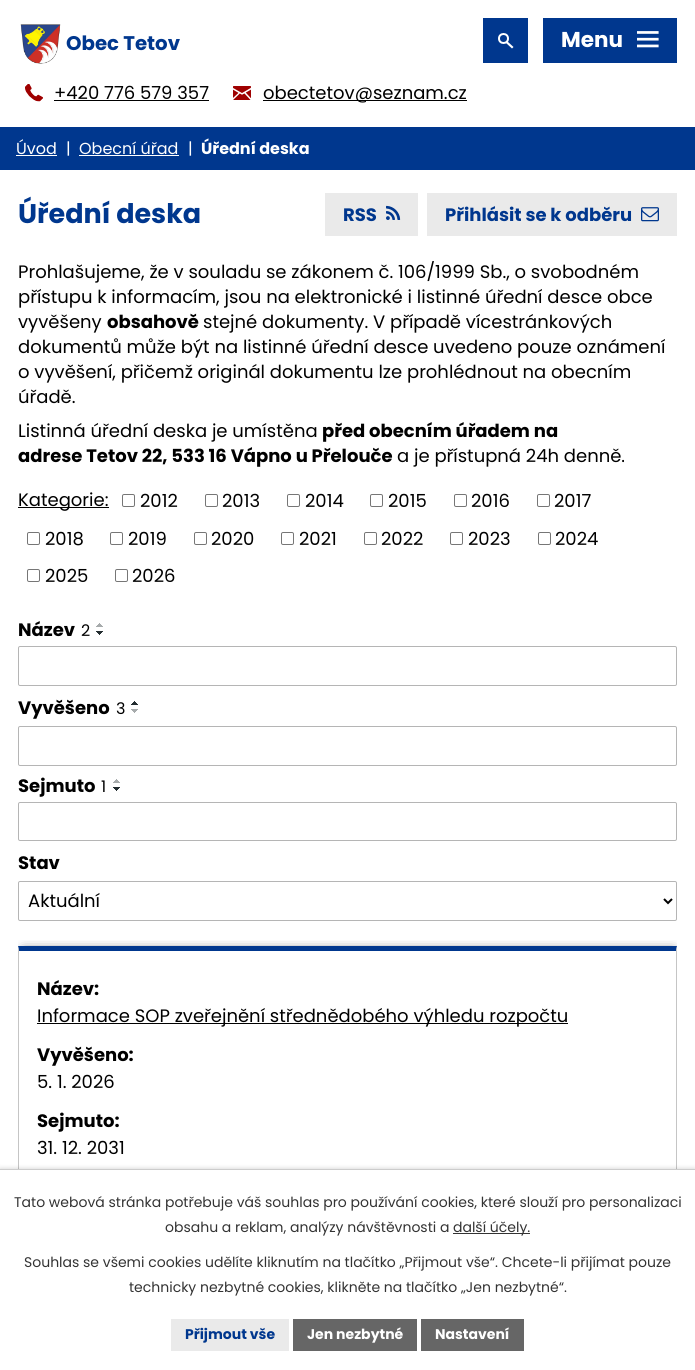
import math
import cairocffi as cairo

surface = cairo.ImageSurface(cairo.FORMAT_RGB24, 695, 1370)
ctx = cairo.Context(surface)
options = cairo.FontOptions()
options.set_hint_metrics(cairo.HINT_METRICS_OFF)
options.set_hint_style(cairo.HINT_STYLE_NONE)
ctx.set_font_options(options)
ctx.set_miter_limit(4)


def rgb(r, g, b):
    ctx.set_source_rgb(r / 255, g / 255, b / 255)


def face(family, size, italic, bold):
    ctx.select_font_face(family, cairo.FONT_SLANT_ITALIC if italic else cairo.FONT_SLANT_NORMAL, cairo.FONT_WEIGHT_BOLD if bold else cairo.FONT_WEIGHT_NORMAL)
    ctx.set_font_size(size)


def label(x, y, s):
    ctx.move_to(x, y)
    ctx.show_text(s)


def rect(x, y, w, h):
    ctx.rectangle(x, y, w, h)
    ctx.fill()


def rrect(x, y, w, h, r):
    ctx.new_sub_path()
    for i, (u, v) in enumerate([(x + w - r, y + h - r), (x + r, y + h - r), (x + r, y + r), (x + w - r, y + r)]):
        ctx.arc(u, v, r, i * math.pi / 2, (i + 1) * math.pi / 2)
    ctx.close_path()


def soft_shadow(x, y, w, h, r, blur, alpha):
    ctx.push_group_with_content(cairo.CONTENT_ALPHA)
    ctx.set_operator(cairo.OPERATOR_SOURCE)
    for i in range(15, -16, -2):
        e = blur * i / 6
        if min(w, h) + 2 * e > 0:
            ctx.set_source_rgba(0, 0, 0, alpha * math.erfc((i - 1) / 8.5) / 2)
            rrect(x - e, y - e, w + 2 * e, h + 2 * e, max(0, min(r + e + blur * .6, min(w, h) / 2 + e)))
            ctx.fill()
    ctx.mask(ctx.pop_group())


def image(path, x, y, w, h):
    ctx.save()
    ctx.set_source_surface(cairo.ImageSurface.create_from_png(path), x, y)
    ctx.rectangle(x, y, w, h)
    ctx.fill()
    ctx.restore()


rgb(255, 255, 255)
ctx.paint()
image('image0.png', 20, 24, 41, 40)
face('Poppins', 19.75, 0, 1)
rgb(0, 55, 142)
label(66, 50, 'Obec Tetov')
rect(483, 18, 45, 45)
ctx.new_path()
ctx.arc(503.5, 38.5, 4.5, 0, 2 * math.pi)
rgb(255, 255, 255)
ctx.stroke()
ctx.new_path()
ctx.move_to(507.5, 41.5)
ctx.line_to(513.5, 47)
ctx.line_to(512, 48.5)
ctx.line_to(506, 43)
ctx.close_path()
ctx.fill()
image('image1.png', 25, 84, 18, 18)
face('Poppins', 18, 0, 0)
rgb(0, 0, 0)
label(54, 99, '+420 776 579 357')
rect(54, 100, 155, 1)
image('image2.png', 233, 86, 18, 14)
rect(263, 100, 204, 1)
label(263, 99, 'obectetov@seznam.cz')
rgb(0, 55, 142)
rect(543, 18, 134, 45)
face('Poppins', 21.5, 0, 1)
rgb(255, 255, 255)
label(561, 47, 'Menu')
image('image3.png', 637, 31, 22, 17)
rgb(0, 55, 142)
rect(0, 127, 695, 43)
face('Poppins', 16, 0, 0)
rgb(255, 255, 255)
label(16, 154, 'Úvod')
rect(16, 155, 41, 1)
label(66, 154, '|')
label(79, 154, 'Obecní úřad')
rect(79, 155, 100, 1)
label(188, 154, '|')
face('Poppins', 16, 0, 1)
label(201, 154, 'Úřední deska')
face('Poppins', 27, 0, 1)
rgb(0, 55, 142)
label(18, 223, 'Úřední deska')
rgb(234, 234, 234)
rect(325, 193, 93, 43)
face('Poppins', 18, 0, 1)
rgb(0, 55, 142)
label(343, 221, 'RSS')
image('image4.png', 386, 205, 15, 15)
rgb(234, 234, 234)
rect(427, 193, 250, 43)
rgb(0, 55, 142)
label(445, 221, 'Přihlásit se k odběru')
image('image5.png', 641, 207, 18, 15)
face('Poppins', 18, 0, 0)
rgb(0, 0, 0)
label(18, 278, 'Prohlašujeme, že v souladu se zákonem č. 106/1999 Sb., o svobodném')
label(18, 303, 'přístupu k informacím, jsou na elektronické i listinné úřední desce obce')
label(18, 328, 'vyvěšeny')
face('Poppins', 18, 0, 1)
label(107, 328, 'obsahově')
face('Poppins', 18, 0, 0)
label(203, 328, 'stejné dokumenty. V případě vícestránkových')
label(18, 353, 'dokumentů může být na listinné úřední desce uvedeno pouze oznámení')
label(18, 378, 'o vyvěšení, přičemž originál dokumentu lze prohlédnout na obecním')
label(18, 403, 'úřadě.')
label(18, 437, 'Listinná úřední deska je umístěna')
face('Poppins', 18, 0, 1)
label(322, 437, 'před obecním úřadem na')
label(18, 462, 'adrese Tetov 22, 533 16 Vápno u Přelouče')
face('Poppins', 18, 0, 0)
label(397, 462, 'a je přístupná 24h denně.')
rect(18, 507, 91, 1)
label(18, 506, 'Kategorie:')
rrect(122.5, 494.5, 12, 12, 1.5)
rgb(118, 118, 118)
ctx.set_line_width(1)
ctx.stroke()
rgb(0, 0, 0)
label(140, 507, '2012')
rrect(205.5, 494.5, 12, 12, 1.5)
rgb(118, 118, 118)
ctx.stroke()
rgb(0, 0, 0)
label(222, 507, '2013')
rrect(287.5, 494.5, 12, 12, 1.5)
rgb(118, 118, 118)
ctx.stroke()
rgb(0, 0, 0)
label(305, 507, '2014')
rrect(370.5, 494.5, 12, 12, 1.5)
rgb(118, 118, 118)
ctx.stroke()
rgb(0, 0, 0)
label(388, 507, '2015')
rrect(454.5, 494.5, 12, 12, 1.5)
rgb(118, 118, 118)
ctx.stroke()
rgb(0, 0, 0)
label(471, 507, '2016')
rrect(537.5, 494.5, 12, 12, 1.5)
rgb(118, 118, 118)
ctx.stroke()
rgb(0, 0, 0)
label(554, 507, '2017')
rrect(27.5, 532.5, 12, 12, 1.5)
rgb(118, 118, 118)
ctx.stroke()
rgb(0, 0, 0)
label(45, 545, '2018')
rrect(110.5, 532.5, 12, 12, 1.5)
rgb(118, 118, 118)
ctx.stroke()
rgb(0, 0, 0)
label(128, 545, '2019')
rrect(194.5, 532.5, 12, 12, 1.5)
rgb(118, 118, 118)
ctx.stroke()
rgb(0, 0, 0)
label(211, 545, '2020')
rrect(281.5, 532.5, 12, 12, 1.5)
rgb(118, 118, 118)
ctx.stroke()
rgb(0, 0, 0)
label(299, 545, '2021')
rrect(364.5, 532.5, 12, 12, 1.5)
rgb(118, 118, 118)
ctx.stroke()
rgb(0, 0, 0)
label(381, 545, '2022')
rrect(450.5, 532.5, 12, 12, 1.5)
rgb(118, 118, 118)
ctx.stroke()
rgb(0, 0, 0)
label(468, 545, '2023')
rrect(538.5, 532.5, 12, 12, 1.5)
rgb(118, 118, 118)
ctx.stroke()
rgb(0, 0, 0)
label(555, 545, '2024')
rrect(27.5, 569.5, 12, 12, 1.5)
rgb(118, 118, 118)
ctx.stroke()
rgb(0, 0, 0)
label(45, 582, '2025')
rrect(115.5, 569.5, 12, 12, 1.5)
rgb(118, 118, 118)
ctx.stroke()
rgb(0, 0, 0)
label(132, 582, '2026')
face('Poppins', 18, 0, 1)
label(18, 636, 'Název')
face('Poppins', 16, 0, 0)
label(81, 636, '2')
image('image6.png', 96, 623, 7, 4)
image('image7.png', 96, 631, 7, 4)
face('Poppins', 18, 0, 1)
label(18, 714, 'Vyvěšeno')
face('Poppins', 16, 0, 0)
label(116, 714, '3')
image('image8.png', 131, 701, 7, 4)
image('image9.png', 131, 709, 7, 4)
face('Poppins', 18, 0, 1)
label(18, 792, 'Sejmuto')
face('Poppins', 16, 0, 0)
label(101, 792, '1')
image('image6.png', 113, 779, 7, 4)
image('image7.png', 113, 787, 7, 4)
face('Poppins', 18, 0, 1)
label(18, 869, 'Stav')
rrect(18.5, 646.5, 658, 39, 1.5)
rgb(181, 181, 181)
ctx.stroke()
rrect(18.5, 726.5, 658, 39, 1.5)
ctx.stroke()
rrect(18.5, 802.5, 658, 38, 1.5)
ctx.stroke()
rrect(18.5, 881.5, 658, 39, 1.5)
ctx.stroke()
ctx.new_path()
ctx.move_to(664, 899)
ctx.line_to(668, 903)
ctx.line_to(672, 899)
rgb(0, 0, 0)
ctx.set_line_width(2)
ctx.stroke()
face('Poppins', 18, 0, 0)
label(28, 907, 'Aktuální')
ctx.save()
ctx.rectangle(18, 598, 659, 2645)
ctx.clip()
ctx.rectangle(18, 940, 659, 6)
ctx.clip()
rgb(0, 0, 0)
soft_shadow(24, 952, 649, 296, 0, 6, 1)
ctx.restore()
rgb(0, 55, 142)
ctx.new_path()
ctx.move_to(18, 946)
ctx.line_to(677, 946)
ctx.line_to(676, 951)
ctx.line_to(19, 951)
ctx.close_path()
ctx.fill()
rgb(197, 197, 197)
ctx.new_path()
ctx.move_to(677, 946)
ctx.line_to(677, 1252)
ctx.line_to(676, 1251)
ctx.line_to(676, 951)
ctx.close_path()
ctx.fill()
ctx.new_path()
ctx.move_to(18, 1252)
ctx.line_to(18, 946)
ctx.line_to(19, 951)
ctx.line_to(19, 1251)
ctx.close_path()
ctx.fill()
face('Poppins', 18, 0, 1)
rgb(0, 0, 0)
label(37, 995, 'Název:')
rect(37, 1023, 531, 1)
face('Poppins', 18, 0, 0)
label(37, 1022, 'Informace SOP zveřejnění střednědobého výhledu rozpočtu')
face('Poppins', 18, 0, 1)
label(37, 1061, 'Vyvěšeno:')
face('Poppins', 18, 0, 0)
label(37, 1088, '5. 1. 2026')
face('Poppins', 18, 0, 1)
label(37, 1127, 'Sejmuto:')
face('Poppins', 18, 0, 0)
label(37, 1154, '31. 12. 2031')
rgb(0, 0, 0)
soft_shadow(0, 1169, 695, 201, 0, 2.5, 0.2)
rgb(255, 255, 255)
rect(0, 1170, 695, 200)
rgb(204, 204, 204)
rect(0, 1169, 695, 1)
face('Poppins', 14, 0, 0)
rgb(51, 51, 51)
label(14, 1207, 'Tato webová stránka potřebuje váš souhlas pro používání cookies, které slouží pro personalizaci')
label(165, 1232, 'obsahu a reklam, analýzy návštěvnosti a')
rect(453, 1233, 77, 1)
label(453, 1232, 'další účely.')
label(24, 1267, 'Souhlas se všemi cookies udělíte kliknutím na tlačítko „Přijmout vše“. Chcete-li přijímat pouze')
label(129, 1292, 'technicky nezbytné cookies, klikněte na tlačítko „Jen nezbytné“.')
rgb(234, 234, 234)
rect(171, 1319, 118, 32)
face('Poppins', 14, 0, 1)
rgb(0, 55, 142)
label(185, 1339, 'Přijmout vše')
rgb(102, 102, 102)
rect(293, 1319, 124, 32)
rgb(255, 255, 255)
label(307, 1339, 'Jen nezbytné')
rgb(102, 102, 102)
rect(421, 1319, 103, 32)
rgb(255, 255, 255)
label(435, 1339, 'Nastavení')
surface.write_to_png('render.png')
